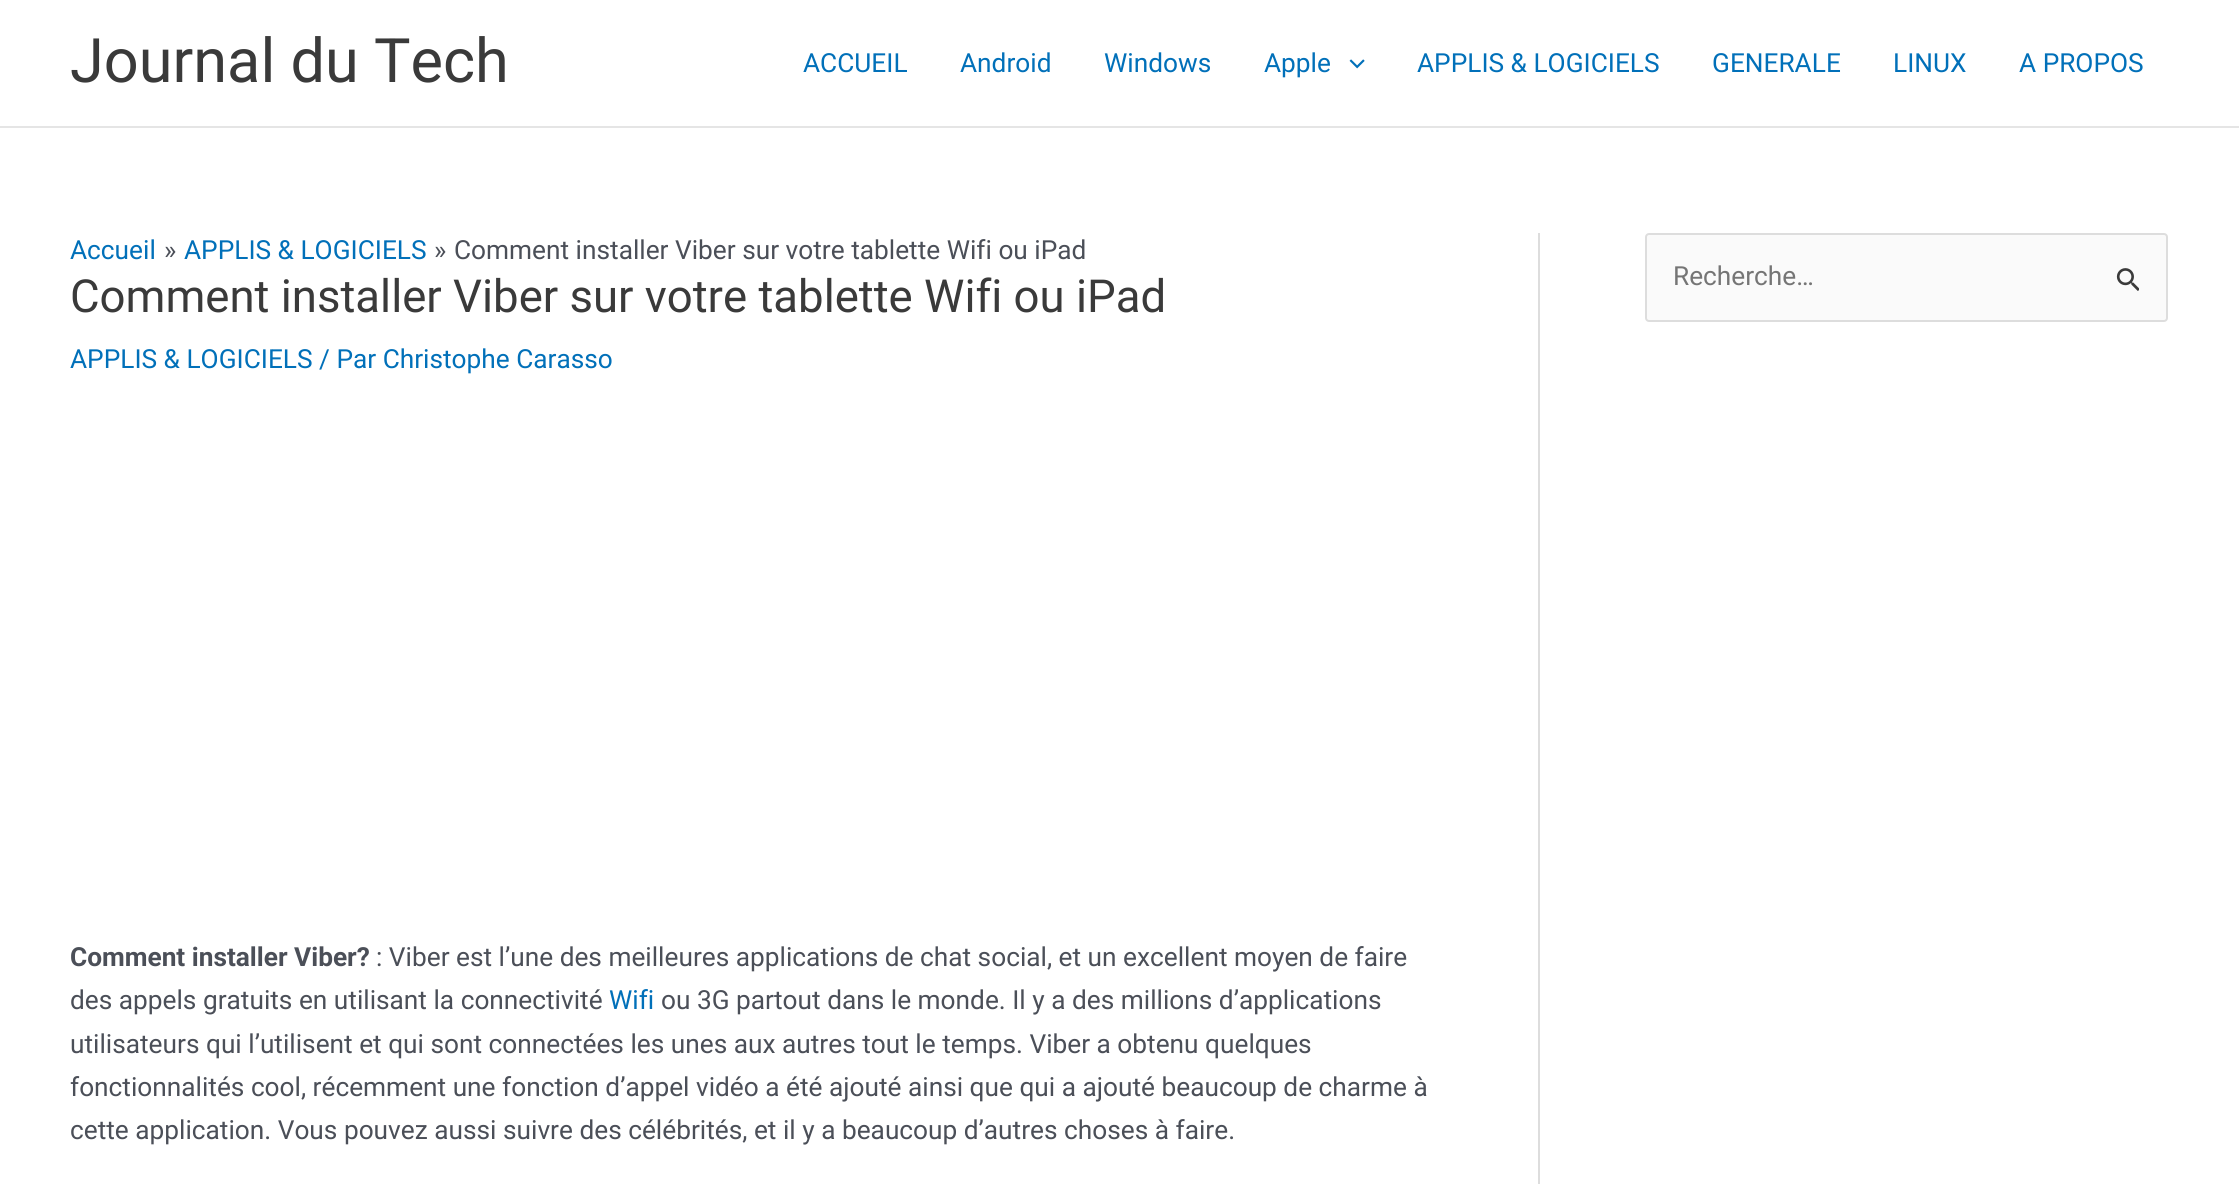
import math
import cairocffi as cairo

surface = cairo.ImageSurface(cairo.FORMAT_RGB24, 2239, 1184)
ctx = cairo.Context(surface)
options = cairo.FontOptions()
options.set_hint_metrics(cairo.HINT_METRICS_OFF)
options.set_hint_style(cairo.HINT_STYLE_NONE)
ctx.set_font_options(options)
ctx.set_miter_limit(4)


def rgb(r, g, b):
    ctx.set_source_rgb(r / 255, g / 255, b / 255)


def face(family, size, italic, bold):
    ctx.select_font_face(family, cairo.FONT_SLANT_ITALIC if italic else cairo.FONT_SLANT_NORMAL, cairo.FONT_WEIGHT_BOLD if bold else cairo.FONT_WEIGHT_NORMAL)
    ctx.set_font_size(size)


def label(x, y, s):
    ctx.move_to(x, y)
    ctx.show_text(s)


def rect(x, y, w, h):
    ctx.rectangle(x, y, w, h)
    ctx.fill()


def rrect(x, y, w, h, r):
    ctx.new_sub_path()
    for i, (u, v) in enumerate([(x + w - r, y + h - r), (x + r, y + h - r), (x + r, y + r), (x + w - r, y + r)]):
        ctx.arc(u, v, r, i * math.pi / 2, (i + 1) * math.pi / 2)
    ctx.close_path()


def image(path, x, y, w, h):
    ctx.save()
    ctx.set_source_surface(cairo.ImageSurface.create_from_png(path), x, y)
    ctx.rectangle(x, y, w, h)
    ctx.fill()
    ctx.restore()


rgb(255, 255, 255)
ctx.paint()
rgb(229, 229, 229)
rect(0, 126, 2239, 2)
face('Roboto', 61.25, 0, 0)
rgb(58, 58, 58)
label(70, 82, 'Journal du Tech')
face('Roboto', 26.25, 0, 0)
rgb(1, 112, 185)
label(803, 72, 'ACCUEIL')
label(960, 72, 'Android')
label(1104, 72, 'Windows')
label(1264, 72, 'Apple')
image('image0.png', 1349, 59, 16, 10)
label(1417, 72, 'APPLIS & LOGICIELS')
label(1712, 72, 'GENERALE')
label(1893, 72, 'LINUX')
label(2019, 72, 'A PROPOS')
rgb(221, 221, 221)
rect(1538, 233, 2, 951)
rgb(1, 112, 185)
label(70, 259, 'Accueil')
rgb(75, 79, 88)
label(164, 259, '»')
rgb(1, 112, 185)
label(184, 259, 'APPLIS & LOGICIELS')
rgb(75, 79, 88)
label(434, 259, '»')
label(454, 259, 'Comment installer Viber sur votre tablette Wifi ou iPad')
face('Roboto', 45.5, 0, 0)
rgb(58, 58, 58)
label(70, 312, 'Comment installer Viber sur votre tablette Wifi ou iPad')
face('Roboto', 26.25, 0, 0)
rgb(1, 112, 185)
label(70, 368, 'APPLIS & LOGICIELS / Par Christophe Carasso')
face('Roboto', 26.25, 0, 1)
rgb(75, 79, 88)
label(70, 966, 'Comment installer Viber?')
face('Roboto', 26.25, 0, 0)
label(376, 966, ': Viber est l’une des meilleures applications de chat social, et un excellent moyen de faire')
label(70, 1009, 'des appels gratuits en utilisant la connectivité')
rgb(1, 112, 185)
label(609, 1009, 'Wifi')
rgb(75, 79, 88)
label(661, 1009, 'ou 3G partout dans le monde. Il y a des millions d’applications')
label(70, 1053, 'utilisateurs qui l’utilisent et qui sont connectées les unes aux autres tout le temps. Viber a obtenu quelques')
label(70, 1096, 'fonctionnalités cool, récemment une fonction d’appel vidéo a été ajouté ainsi que qui a ajouté beaucoup de charme à')
label(70, 1139, 'cette application. Vous pouvez aussi suivre des célébrités, et il y a beaucoup d’autres choses à faire.')
rgb(250, 250, 250)
rrect(1646, 234, 521, 87, 3)
ctx.fill_preserve()
rgb(221, 221, 221)
ctx.stroke()
rgb(117, 117, 117)
label(1673, 285, 'Recherche…')
image('image1.png', 2116, 268, 23, 23)
surface.write_to_png('render.png')
